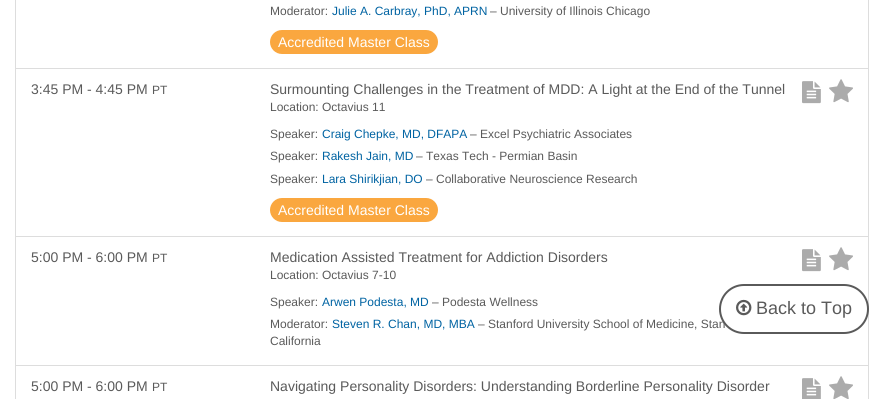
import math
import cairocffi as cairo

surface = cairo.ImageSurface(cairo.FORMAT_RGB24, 884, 399)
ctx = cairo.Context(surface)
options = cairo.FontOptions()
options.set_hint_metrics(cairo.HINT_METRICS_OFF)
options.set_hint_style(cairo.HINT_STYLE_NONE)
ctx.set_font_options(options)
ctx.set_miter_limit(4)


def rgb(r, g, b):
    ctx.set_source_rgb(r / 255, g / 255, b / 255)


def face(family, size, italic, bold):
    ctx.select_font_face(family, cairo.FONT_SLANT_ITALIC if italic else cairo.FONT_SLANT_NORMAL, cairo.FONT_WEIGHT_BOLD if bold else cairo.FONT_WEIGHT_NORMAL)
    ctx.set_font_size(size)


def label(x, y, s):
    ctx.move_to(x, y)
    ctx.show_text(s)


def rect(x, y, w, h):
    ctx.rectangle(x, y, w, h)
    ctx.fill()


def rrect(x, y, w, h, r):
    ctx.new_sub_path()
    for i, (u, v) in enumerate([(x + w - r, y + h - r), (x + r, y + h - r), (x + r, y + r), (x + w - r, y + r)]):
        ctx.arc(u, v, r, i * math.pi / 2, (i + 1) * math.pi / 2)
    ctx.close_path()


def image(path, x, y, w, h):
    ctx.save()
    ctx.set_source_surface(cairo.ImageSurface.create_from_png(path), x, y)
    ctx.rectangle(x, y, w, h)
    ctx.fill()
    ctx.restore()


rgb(255, 255, 255)
ctx.paint()
ctx.rectangle(15.5, -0.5, 853, 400)
rgb(221, 221, 221)
ctx.set_line_width(1)
ctx.stroke()
rect(16, 68, 852, 1)
face('Liberation Sans', 12, 0, 0)
rgb(90, 90, 90)
label(270, 15, 'Moderator:')
rgb(0, 99, 162)
label(332, 15, 'Julie A. Carbray, PhD, APRN')
rgb(90, 90, 90)
label(490, 15, '– University of Illinois Chicago')
rgb(250, 167, 63)
rrect(270, 30, 168, 24, 12)
ctx.fill()
face('Liberation Sans', 14, 0, 0)
rgb(255, 255, 255)
label(278, 47, 'Accredited Master Class')
rgb(221, 221, 221)
rect(16, 236, 852, 1)
rgb(90, 90, 90)
label(31, 94, '3:45 PM - 4:45 PM')
face('Liberation Sans', 12, 0, 0)
label(152, 94, 'PT')
face('Liberation Sans', 14, 0, 0)
label(270, 94, 'Surmounting Challenges in the Treatment of MDD: A Light at the End of the Tunnel')
face('Liberation Sans', 12, 0, 0)
label(270, 111, 'Location: Octavius 11')
label(270, 138, 'Speaker:')
rgb(0, 99, 162)
label(322, 138, 'Craig Chepke, MD, DFAPA')
rgb(90, 90, 90)
label(470, 138, '– Excel Psychiatric Associates')
label(270, 160, 'Speaker:')
rgb(0, 99, 162)
label(322, 160, 'Rakesh Jain, MD')
rgb(90, 90, 90)
label(416, 160, '– Texas Tech - Permian Basin')
label(270, 183, 'Speaker:')
rgb(0, 99, 162)
label(322, 183, 'Lara Shirikjian, DO')
rgb(90, 90, 90)
label(426, 183, '– Collaborative Neuroscience Research')
rgb(250, 167, 63)
rrect(270, 198, 168, 24, 12)
ctx.fill()
face('Liberation Sans', 14, 0, 0)
rgb(255, 255, 255)
label(278, 215, 'Accredited Master Class')
image('image0.png', 802, 81, 19, 23)
image('image1.png', 829, 79, 24, 24)
rgb(221, 221, 221)
rect(16, 365, 852, 1)
rgb(90, 90, 90)
label(31, 262, '5:00 PM - 6:00 PM')
face('Liberation Sans', 12, 0, 0)
label(152, 262, 'PT')
face('Liberation Sans', 14, 0, 0)
label(270, 262, 'Medication Assisted Treatment for Addiction Disorders')
face('Liberation Sans', 12, 0, 0)
label(270, 279, 'Location: Octavius 7-10')
label(270, 306, 'Speaker:')
rgb(0, 99, 162)
label(322, 306, 'Arwen Podesta, MD')
rgb(90, 90, 90)
label(432, 306, '– Podesta Wellness')
label(270, 328, 'Moderator:')
rgb(0, 99, 162)
label(332, 328, 'Steven R. Chan, MD, MBA')
rgb(90, 90, 90)
label(478, 328, '– Stanford University School of Medicine, Stan')
label(270, 345, 'California')
image('image0.png', 802, 249, 19, 23)
image('image1.png', 829, 247, 24, 24)
face('Liberation Sans', 14, 0, 0)
label(31, 391, '5:00 PM - 6:00 PM')
face('Liberation Sans', 12, 0, 0)
label(152, 391, 'PT')
face('Liberation Sans', 14, 0, 0)
label(270, 391, 'Navigating Personality Disorders: Understanding Borderline Personality Disorder')
image('image2.png', 802, 378, 19, 21)
image('image3.png', 829, 376, 24, 23)
rgb(255, 255, 255)
rrect(720, 285, 148, 48, 24)
ctx.fill_preserve()
rgb(90, 90, 90)
ctx.set_line_width(2)
ctx.stroke()
image('image4.png', 736, 299, 16, 17)
face('Liberation Sans', 18, 0, 0)
label(756, 314, 'Back to Top')
surface.write_to_png('render.png')
